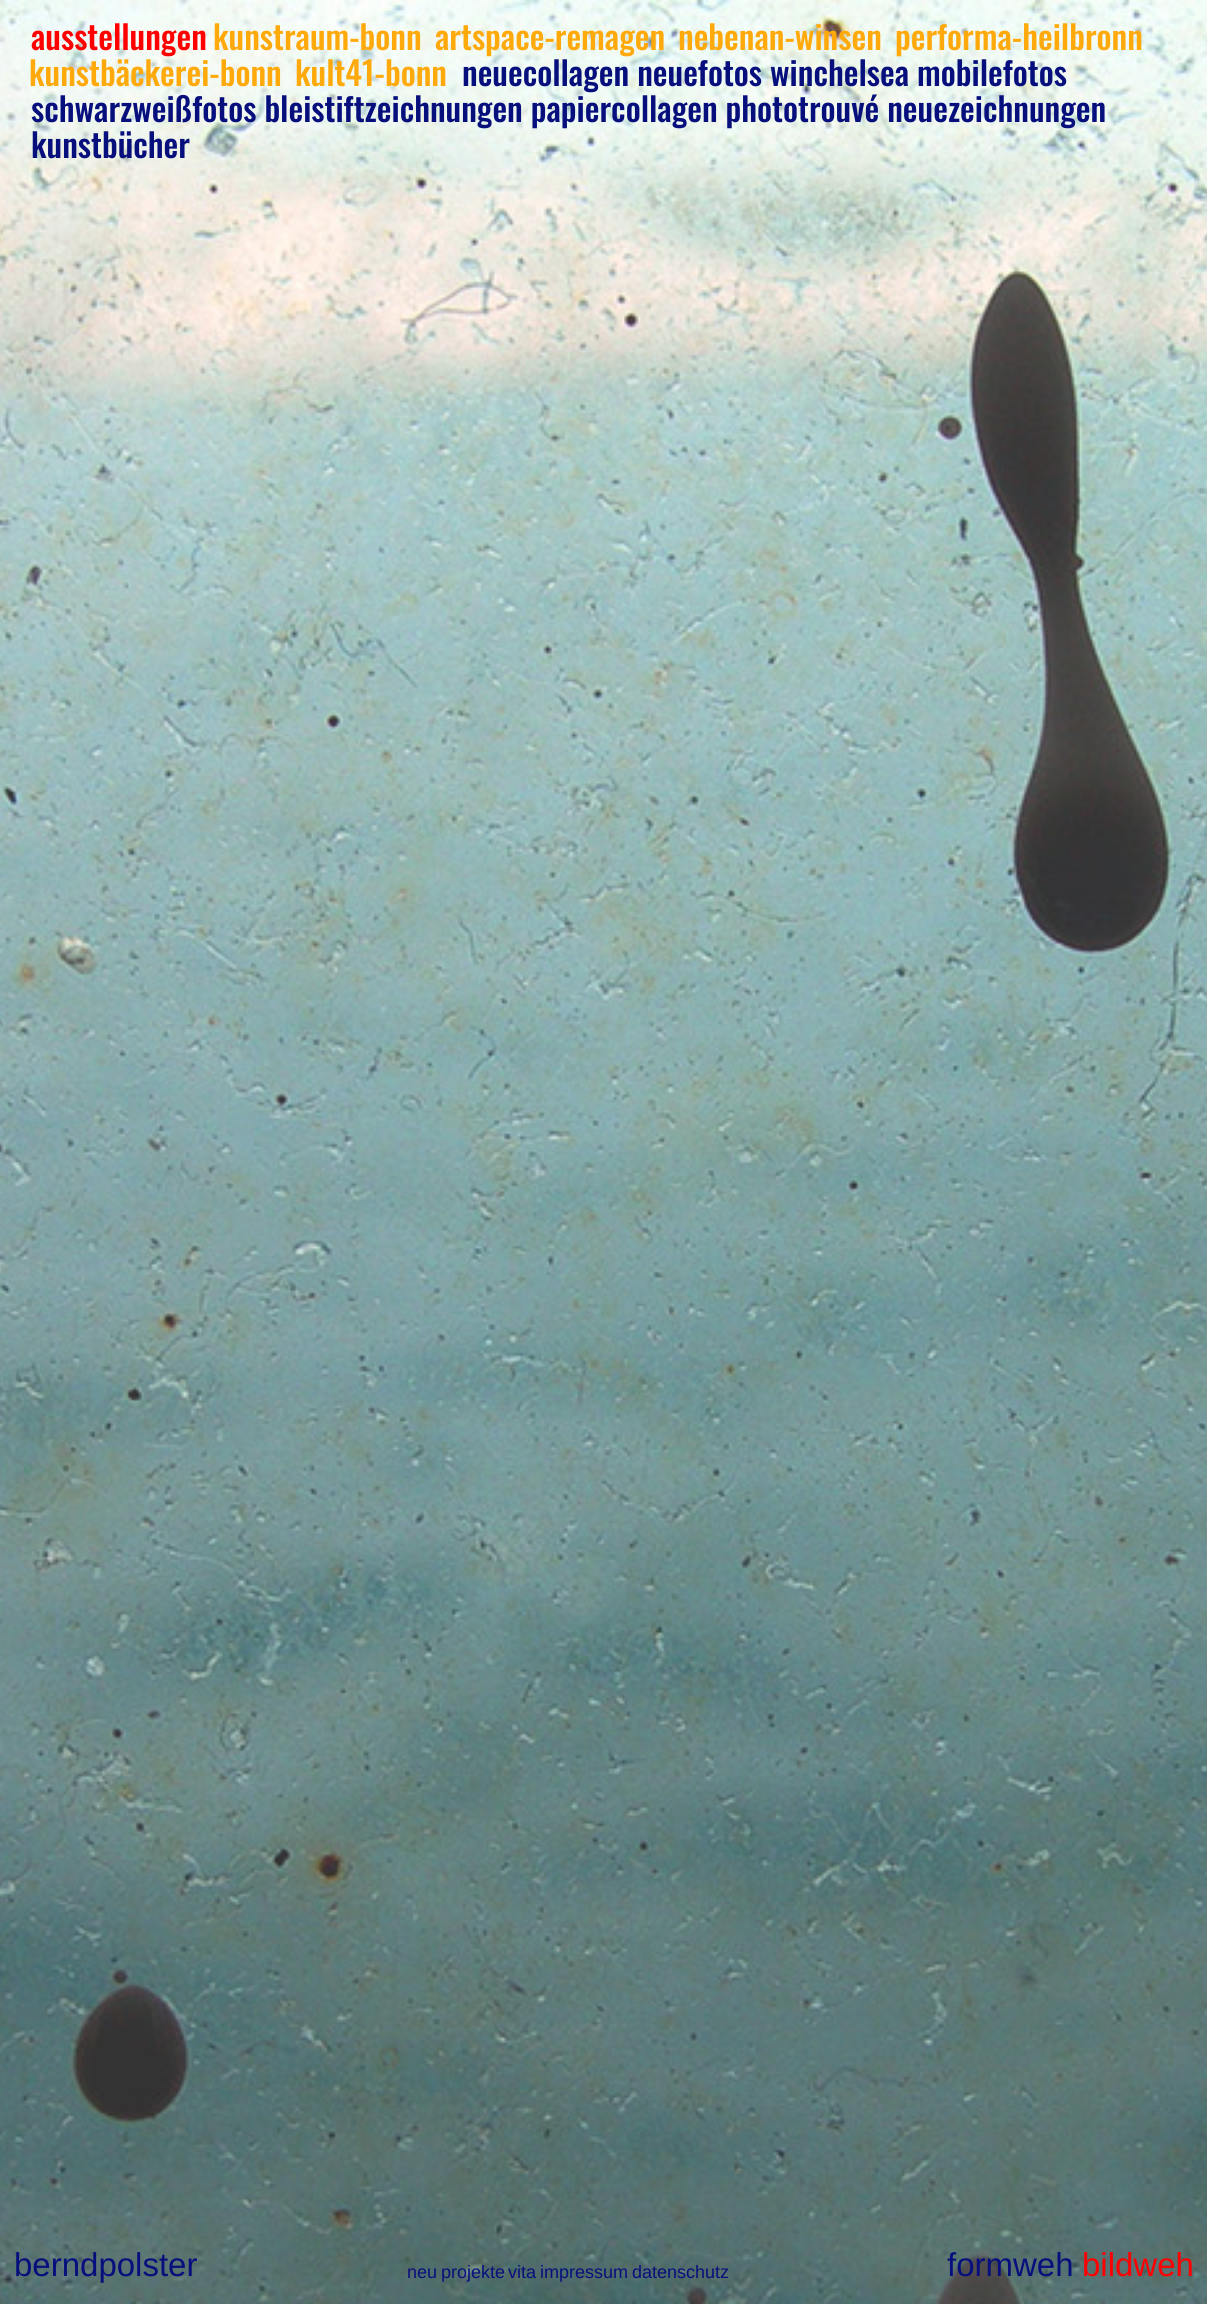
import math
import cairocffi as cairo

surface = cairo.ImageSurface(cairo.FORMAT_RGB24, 1207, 2304)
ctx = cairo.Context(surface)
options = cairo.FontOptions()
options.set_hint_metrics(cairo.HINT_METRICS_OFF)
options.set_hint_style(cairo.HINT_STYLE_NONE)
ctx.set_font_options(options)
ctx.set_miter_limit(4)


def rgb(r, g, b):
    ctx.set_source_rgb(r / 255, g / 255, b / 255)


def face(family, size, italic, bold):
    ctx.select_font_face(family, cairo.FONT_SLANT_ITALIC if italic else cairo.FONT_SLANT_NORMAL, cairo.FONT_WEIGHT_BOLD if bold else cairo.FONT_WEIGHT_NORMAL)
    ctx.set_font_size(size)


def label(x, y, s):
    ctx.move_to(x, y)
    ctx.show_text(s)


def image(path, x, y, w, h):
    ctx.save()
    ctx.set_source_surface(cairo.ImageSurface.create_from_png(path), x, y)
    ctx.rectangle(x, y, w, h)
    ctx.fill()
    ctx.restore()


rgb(255, 255, 255)
ctx.paint()
image('image0.png', 0, 0, 1207, 2304)
face('Oswald Medium', 33, 0, 0)
rgb(255, 169, 10)
label(213, 50, 'kunstraum-bonn')
label(435, 50, 'artspace-remagen')
label(678, 50, 'nebenan-winsen')
label(895, 50, 'performa-heilbronn')
label(29, 86, 'kunstbäckerei-bonn')
label(295, 86, 'kult41-bonn')
rgb(255, 0, 0)
label(31, 50, 'ausstellungen')
rgb(7, 15, 125)
label(462, 86, 'neuecollagen neuefotos winchelsea mobilefotos')
label(31, 122, 'schwarzweißfotos bleistiftzeichnungen papiercollagen phototrouvé neuezeichnungen')
label(31, 158, 'kunstbücher')
face('Liberation Sans', 33, 0, 0)
label(14, 2276, 'berndpolster')
face('Liberation Sans', 18, 0, 0)
label(407, 2278, 'neu')
label(441, 2278, 'projekte')
label(508, 2278, 'vita')
label(540, 2278, 'impressum')
label(632, 2278, 'datenschutz')
face('Liberation Sans', 33, 0, 0)
label(947, 2276, 'formweh')
rgb(255, 0, 0)
label(1082, 2276, 'bildweh')
surface.write_to_png('render.png')
